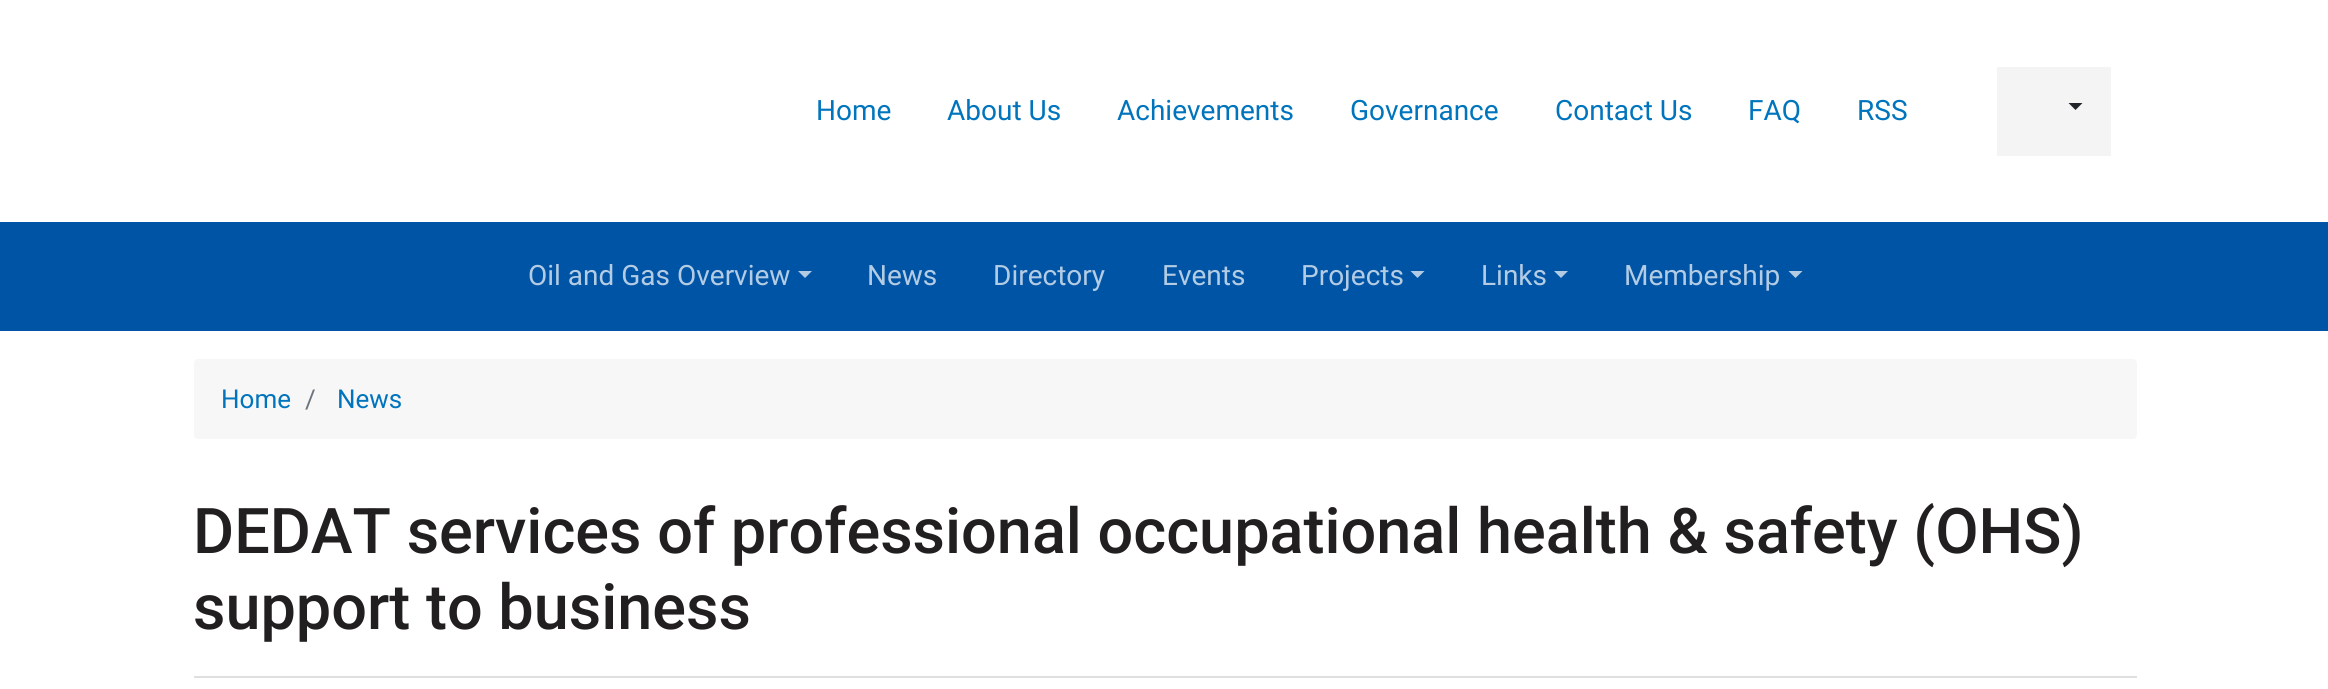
import math
import cairocffi as cairo

surface = cairo.ImageSurface(cairo.FORMAT_RGB24, 2328, 689)
ctx = cairo.Context(surface)
options = cairo.FontOptions()
options.set_hint_metrics(cairo.HINT_METRICS_OFF)
options.set_hint_style(cairo.HINT_STYLE_NONE)
ctx.set_font_options(options)
ctx.set_miter_limit(4)


def rgb(r, g, b):
    ctx.set_source_rgb(r / 255, g / 255, b / 255)


def face(family, size, italic, bold):
    ctx.select_font_face(family, cairo.FONT_SLANT_ITALIC if italic else cairo.FONT_SLANT_NORMAL, cairo.FONT_WEIGHT_BOLD if bold else cairo.FONT_WEIGHT_NORMAL)
    ctx.set_font_size(size)


def label(x, y, s):
    ctx.move_to(x, y)
    ctx.show_text(s)


def rect(x, y, w, h):
    ctx.rectangle(x, y, w, h)
    ctx.fill()


def rrect(x, y, w, h, r):
    ctx.new_sub_path()
    for i, (u, v) in enumerate([(x + w - r, y + h - r), (x + r, y + h - r), (x + r, y + r), (x + w - r, y + r)]):
        ctx.arc(u, v, r, i * math.pi / 2, (i + 1) * math.pi / 2)
    ctx.close_path()


rgb(255, 255, 255)
ctx.paint()
face('Roboto', 28, 0, 0)
rgb(0, 116, 189)
label(816, 120, 'Home')
label(947, 120, 'About Us')
label(1117, 120, 'Achievements')
label(1350, 120, 'Governance')
label(1555, 120, 'Contact Us')
label(1748, 120, 'FAQ')
label(1857, 120, 'RSS')
rgb(244, 244, 244)
rect(1997, 67, 114, 89)
rgb(33, 37, 41)
ctx.new_path()
ctx.move_to(2068.5, 103)
ctx.line_to(2082.5, 103)
ctx.line_to(2075.5, 110)
ctx.close_path()
ctx.fill()
rgb(0, 84, 166)
rect(0, 222, 2328, 109)
rgb(179, 204, 228)
label(528, 285, 'Oil and Gas Overview')
ctx.new_path()
ctx.move_to(798, 271)
ctx.line_to(812, 271)
ctx.line_to(805, 278)
ctx.close_path()
ctx.fill()
label(867, 285, 'News')
label(993, 285, 'Directory')
label(1162, 285, 'Events')
label(1301, 285, 'Projects')
ctx.new_path()
ctx.move_to(1410.5, 271)
ctx.line_to(1424.5, 271)
ctx.line_to(1417.5, 278)
ctx.close_path()
ctx.fill()
label(1481, 285, 'Links')
ctx.new_path()
ctx.move_to(1554, 271)
ctx.line_to(1568, 271)
ctx.line_to(1561, 278)
ctx.close_path()
ctx.fill()
label(1624, 285, 'Membership')
ctx.new_path()
ctx.move_to(1788.5, 271)
ctx.line_to(1802.5, 271)
ctx.line_to(1795.5, 278)
ctx.close_path()
ctx.fill()
rgb(247, 247, 247)
rrect(194, 359, 1943, 80, 4)
ctx.fill()
face('Roboto', 26, 0, 0)
rgb(0, 116, 189)
label(221, 408, 'Home')
rgb(108, 117, 125)
label(305, 408, '/')
rgb(0, 116, 189)
label(337, 408, 'News')
rgb(223, 223, 223)
rect(194, 676, 1943, 2)
face('Roboto Medium', 63, 0, 0)
rgb(34, 31, 32)
label(193, 553, 'DEDAT services of professional occupational health & safety (OHS)')
label(193, 629, 'support to business')
surface.write_to_png('render.png')
